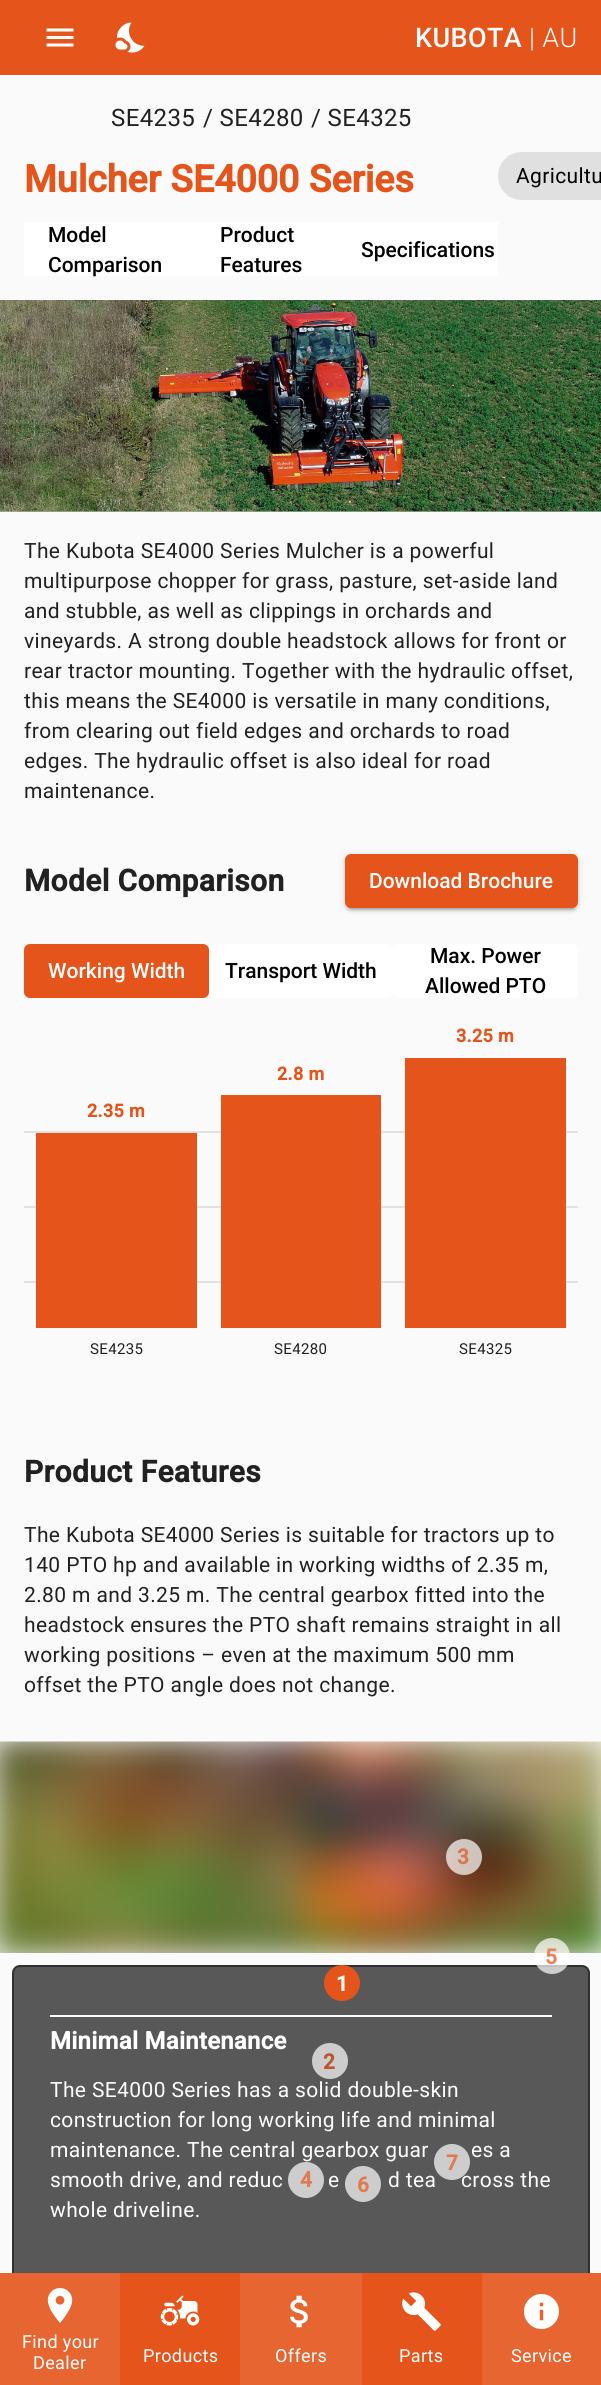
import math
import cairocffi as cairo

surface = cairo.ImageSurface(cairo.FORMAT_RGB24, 601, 2385)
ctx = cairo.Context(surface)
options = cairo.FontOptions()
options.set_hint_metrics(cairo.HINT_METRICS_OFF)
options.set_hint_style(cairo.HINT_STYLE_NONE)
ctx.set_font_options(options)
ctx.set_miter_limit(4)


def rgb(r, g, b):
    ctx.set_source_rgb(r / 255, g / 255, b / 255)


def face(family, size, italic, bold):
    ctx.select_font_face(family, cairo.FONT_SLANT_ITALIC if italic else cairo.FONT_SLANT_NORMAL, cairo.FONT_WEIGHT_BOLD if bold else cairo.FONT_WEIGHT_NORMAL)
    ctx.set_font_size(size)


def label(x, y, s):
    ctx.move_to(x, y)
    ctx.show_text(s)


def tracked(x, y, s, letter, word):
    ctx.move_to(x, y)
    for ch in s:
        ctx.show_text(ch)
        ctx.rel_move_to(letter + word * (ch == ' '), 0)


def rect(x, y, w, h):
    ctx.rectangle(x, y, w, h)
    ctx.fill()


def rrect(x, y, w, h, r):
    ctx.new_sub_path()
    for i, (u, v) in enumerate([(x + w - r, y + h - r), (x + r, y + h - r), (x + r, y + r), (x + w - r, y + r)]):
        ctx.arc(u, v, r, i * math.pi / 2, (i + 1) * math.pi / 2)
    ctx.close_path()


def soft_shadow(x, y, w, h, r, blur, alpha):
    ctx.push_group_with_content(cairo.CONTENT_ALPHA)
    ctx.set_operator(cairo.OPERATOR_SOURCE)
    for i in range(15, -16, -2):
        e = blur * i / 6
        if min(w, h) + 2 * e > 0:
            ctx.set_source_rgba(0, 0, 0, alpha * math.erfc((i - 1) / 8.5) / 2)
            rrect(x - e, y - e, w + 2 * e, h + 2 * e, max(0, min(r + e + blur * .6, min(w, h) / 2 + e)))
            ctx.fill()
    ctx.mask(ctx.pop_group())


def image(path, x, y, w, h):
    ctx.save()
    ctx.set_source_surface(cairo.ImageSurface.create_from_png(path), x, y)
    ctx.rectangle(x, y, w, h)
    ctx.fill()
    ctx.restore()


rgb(250, 250, 250)
ctx.paint()
rgb(228, 84, 27)
rect(0, 0, 601, 75)
image('image0.png', 46, 28, 28, 19)
image('image1.png', 115, 22, 30, 31)
face('Roboto Medium', 27, 0, 0)
rgb(255, 255, 255)
tracked(415, 47, 'KUBOTA', 0.38, 0)
face('Roboto Light', 27, 0, 0)
tracked(529, 47, '| AU', 0.38, 0)
face('Roboto', 24, 0, 0)
rgb(33, 33, 33)
tracked(111, 126, 'SE4235', 0.38, 0)
tracked(203, 126, '/ SE4280', 0.38, 0)
tracked(311, 126, '/ SE4325', 0.38, 0)
face('Roboto', 37.5, 0, 1)
rgb(228, 84, 27)
label(24, 192, 'Mulcher SE4000 Series')
rgb(255, 255, 255)
rect(24, 222, 474, 54)
face('Roboto Medium', 21, 0, 0)
rgb(0, 0, 0)
label(48, 242, 'Model')
label(48, 272, 'Comparison')
label(220, 242, 'Product')
label(220, 272, 'Features')
label(361, 257, 'Specifications')
rgb(224, 224, 224)
ctx.new_path()
ctx.move_to(522, 152)
ctx.line_to(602, 152)
ctx.line_to(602, 200)
ctx.line_to(522, 200)
ctx.curve_to(508.5, 200, 498, 189.5, 498, 176)
ctx.curve_to(498, 162.5, 508.5, 152, 522, 152)
ctx.close_path()
ctx.fill()
face('Roboto', 21, 0, 0)
rgb(0, 0, 0)
tracked(516, 183, 'Agricultu', 0.38, 0)
rgb(193, 193, 193)
rect(0, 511, 601, 1)
image('image3.png', 0, 511, 601, 1)
image('image2.png', 0, 300, 601, 212)
rgb(33, 33, 33)
tracked(24, 558, 'The Kubota SE4000 Series Mulcher is a powerful', 0.38, 0)
tracked(24, 588, 'multipurpose chopper for grass, pasture, set-aside land', 0.38, 0)
tracked(24, 618, 'and stubble, as well as clippings in orchards and', 0.38, 0)
tracked(24, 648, 'vineyards. A strong double headstock allows for front or', 0.38, 0)
tracked(24, 678, 'rear tractor mounting. Together with the hydraulic offset,', 0.38, 0)
tracked(24, 708, 'this means the SE4000 is versatile in many conditions,', 0.38, 0)
tracked(24, 738, 'from clearing out field edges and orchards to road', 0.38, 0)
tracked(24, 768, 'edges. The hydraulic offset is also ideal for road', 0.38, 0)
tracked(24, 798, 'maintenance.', 0.38, 0)
face('Roboto', 30, 0, 1)
tracked(24, 891, 'Model Comparison', 0.38, 0)
rgb(0, 0, 0)
soft_shadow(345, 855, 233, 54, 6, 4, 0.12)
soft_shadow(345, 857, 233, 54, 6, 1.5, 0.14)
soft_shadow(348, 861, 227, 48, 3, 1, 0.2)
rgb(228, 84, 27)
rrect(345, 854, 233, 54, 6)
ctx.fill()
face('Roboto Medium', 21, 0, 0)
rgb(255, 255, 255)
label(369, 888, 'Download Brochure')
rgb(228, 84, 27)
rrect(24, 944, 185, 54, 6)
ctx.fill()
rgb(255, 255, 255)
label(48, 978, 'Working Width')
rrect(209, 944, 184, 54, 6)
ctx.fill()
rgb(0, 0, 0)
label(225, 978, 'Transport Width')
rgb(255, 255, 255)
rrect(393, 944, 185, 54, 6)
ctx.fill()
rgb(0, 0, 0)
label(430, 963, 'Max. Power')
label(425, 993, 'Allowed PTO')
rgb(225, 225, 225)
rect(24, 1131, 554, 2)
rect(24, 1206, 554, 2)
rect(24, 1281, 554, 2)
face('Roboto', 18, 0, 1)
rgb(228, 84, 27)
tracked(87, 1117, '2.35 m', 0.38, 0)
rect(36, 1133, 161, 195)
face('Roboto', 15, 0, 0)
rgb(33, 33, 33)
tracked(90, 1354, 'SE4235', 0.38, 0)
face('Roboto', 18, 0, 1)
rgb(228, 84, 27)
tracked(277, 1080, '2.8 m', 0.38, 0)
rect(221, 1095, 160, 233)
face('Roboto', 15, 0, 0)
rgb(33, 33, 33)
tracked(274, 1354, 'SE4280', 0.38, 0)
face('Roboto', 18, 0, 1)
rgb(228, 84, 27)
tracked(456, 1042, '3.25 m', 0.38, 0)
rect(405, 1058, 161, 270)
face('Roboto', 15, 0, 0)
rgb(33, 33, 33)
tracked(459, 1354, 'SE4325', 0.38, 0)
face('Roboto', 30, 0, 1)
tracked(24, 1482, 'Product Features', 0.38, 0)
face('Roboto', 21, 0, 0)
tracked(24, 1542, 'The Kubota SE4000 Series is suitable for tractors up to', 0.38, 0)
tracked(24, 1572, '140 PTO hp and available in working widths of 2.35 m,', 0.38, 0)
tracked(24, 1602, '2.80 m and 3.25 m. The central gearbox fitted into the', 0.38, 0)
tracked(24, 1632, 'headstock ensures the PTO shaft remains straight in all', 0.38, 0)
tracked(24, 1662, 'working positions – even at the maximum 500 mm', 0.38, 0)
tracked(24, 1692, 'offset the PTO angle does not change.', 0.38, 0)
image('image4.png', 0, 1741, 601, 212)
ctx.set_source_rgba(1, 1, 1, 0.7)
ctx.arc(464, 1857, 18, 0, 2 * math.pi)
ctx.fill()
face('Roboto', 21, 0, 1)
rgb(222, 118, 76)
tracked(457, 1864, '3', 0.38, 0)
rgb(88, 88, 88)
rrect(13, 1966, 576, 325, 7)
ctx.fill_preserve()
rgb(48, 48, 48)
ctx.stroke()
ctx.set_source_rgba(1, 1, 1, 0.7)
ctx.arc(552, 1956, 18, 0, 2 * math.pi)
ctx.fill()
rgb(233, 133, 92)
tracked(545, 1964, '5', 0.38, 0)
rgb(228, 84, 27)
ctx.new_path()
ctx.arc(342, 1983, 18, 0, 2 * math.pi)
ctx.fill()
rgb(255, 255, 255)
tracked(336, 1991, '1', 0.38, 0)
rect(50, 2015, 502, 2)
face('Roboto', 24, 0, 1)
tracked(50, 2049, 'Minimal Maintenance', 0.25, 0)
face('Roboto', 21, 0, 0)
tracked(50, 2097, 'The SE4000 Series has a solid double-skin', 0.38, 0)
tracked(50, 2127, 'construction for long working life and minimal', 0.38, 0)
tracked(50, 2157, 'maintenance. The central gearbox guar', 0.38, 0)
tracked(471, 2157, 'es a', 0.38, 0)
tracked(50, 2187, 'smooth drive, and reduc', 0.38, 0)
tracked(328, 2187, 'e', 0.38, 0)
tracked(388, 2187, 'd tea', 0.38, 0)
tracked(461, 2187, 'cross the', 0.38, 0)
tracked(50, 2217, 'whole driveline.', 0.38, 0)
rgb(205, 205, 205)
ctx.new_path()
ctx.arc(330, 2061, 18, 0, 2 * math.pi)
ctx.fill()
face('Roboto', 21, 0, 1)
rgb(186, 85, 45)
tracked(323, 2069, '2', 0.38, 0)
ctx.set_source_rgba(1, 1, 1, 0.7)
ctx.new_path()
ctx.arc(452, 2162, 18, 0, 2 * math.pi)
ctx.fill()
rgb(223, 122, 82)
tracked(446, 2170, '7', 0.38, 0)
ctx.set_source_rgba(1, 1, 1, 0.7)
ctx.new_path()
ctx.arc(306, 2180, 18, 0, 2 * math.pi)
ctx.fill()
rgb(223, 122, 82)
tracked(300, 2187, '4', 0.38, 0)
ctx.set_source_rgba(1, 1, 1, 0.7)
ctx.new_path()
ctx.arc(363, 2184, 18, 0, 2 * math.pi)
ctx.fill()
rgb(223, 122, 82)
tracked(357, 2192, '6', 0.38, 0)
rgb(228, 84, 27)
rect(120, 2273, 362, 112)
rgb(230, 101, 49)
rect(0, 2273, 120, 112)
image('image5.png', 47, 2288, 26, 35)
face('Roboto', 18, 0, 0)
rgb(255, 255, 255)
tracked(22, 2348, 'Find your', 0.38, 0)
tracked(33, 2369, 'Dealer', 0.38, 0)
image('image6.png', 160, 2295, 40, 31)
tracked(143, 2362, 'Products', 0.38, 0)
rgb(230, 101, 49)
rect(240, 2273, 122, 112)
image('image7.png', 290, 2295, 18, 33)
rgb(255, 255, 255)
tracked(275, 2362, 'Offers', 0.38, 0)
image('image8.png', 402, 2292, 39, 39)
tracked(399, 2362, 'Parts', 0.38, 0)
rgb(230, 101, 49)
rect(482, 2273, 119, 112)
image('image9.png', 524, 2294, 35, 35)
rgb(255, 255, 255)
tracked(511, 2362, 'Service', 0.38, 0)
surface.write_to_png('render.png')
